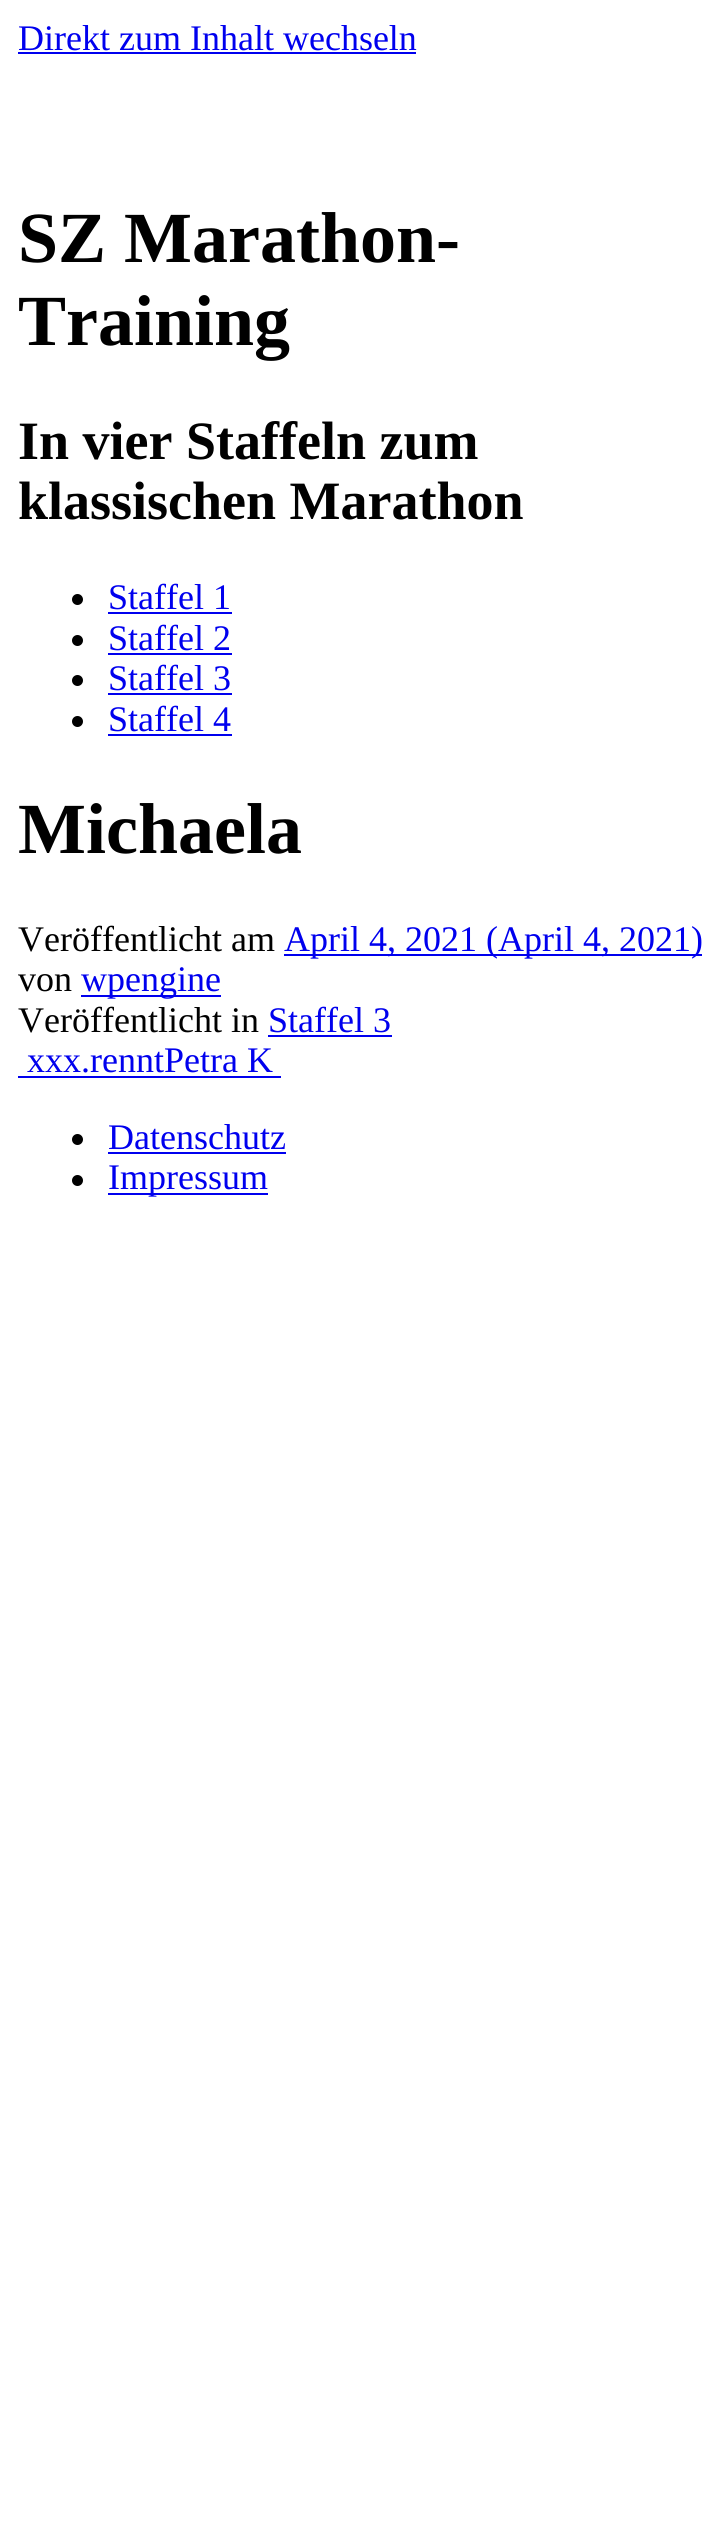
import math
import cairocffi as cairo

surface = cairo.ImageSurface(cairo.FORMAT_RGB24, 728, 2540)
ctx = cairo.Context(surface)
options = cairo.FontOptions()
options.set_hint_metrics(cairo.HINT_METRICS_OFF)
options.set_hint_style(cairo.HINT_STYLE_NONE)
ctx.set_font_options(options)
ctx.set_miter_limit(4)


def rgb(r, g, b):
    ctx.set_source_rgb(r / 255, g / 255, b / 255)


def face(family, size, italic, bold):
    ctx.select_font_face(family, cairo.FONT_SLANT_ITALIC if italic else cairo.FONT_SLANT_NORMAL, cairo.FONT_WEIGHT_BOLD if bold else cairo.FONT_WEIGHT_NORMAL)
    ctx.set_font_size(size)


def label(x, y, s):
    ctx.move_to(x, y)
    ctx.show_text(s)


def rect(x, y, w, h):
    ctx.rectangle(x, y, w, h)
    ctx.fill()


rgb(255, 255, 255)
ctx.paint()
face('Liberation Serif', 36, 0, 0)
rgb(0, 0, 238)
label(18, 50, 'Direkt zum Inhalt wechseln')
rect(18, 52, 398, 2)
face('Liberation Serif', 72, 0, 1)
rgb(0, 0, 0)
label(18, 262, 'SZ Marathon-')
label(18, 345, 'Training')
face('Liberation Serif', 54, 0, 1)
label(18, 459, 'In vier Staffeln zum')
label(18, 519, 'klassischen Marathon')
ctx.new_path()
ctx.arc(77.5, 599.5, 5.5, 0, 2 * math.pi)
ctx.fill()
face('Liberation Serif', 36, 0, 0)
rgb(0, 0, 238)
label(108, 609, 'Staffel 1')
rect(108, 612, 124, 2)
rgb(0, 0, 0)
ctx.new_path()
ctx.arc(77.5, 640.5, 5.5, 0, 2 * math.pi)
ctx.fill()
rgb(0, 0, 238)
label(108, 650, 'Staffel 2')
rect(108, 653, 124, 2)
rgb(0, 0, 0)
ctx.new_path()
ctx.arc(77.5, 680.5, 5.5, 0, 2 * math.pi)
ctx.fill()
rgb(0, 0, 238)
label(108, 690, 'Staffel 3')
rect(108, 693, 124, 2)
rgb(0, 0, 0)
ctx.new_path()
ctx.arc(77.5, 721.5, 5.5, 0, 2 * math.pi)
ctx.fill()
rgb(0, 0, 238)
label(108, 731, 'Staffel 4')
rect(108, 734, 124, 2)
face('Liberation Serif', 72, 0, 1)
rgb(0, 0, 0)
label(18, 853, 'Michaela')
face('Liberation Serif', 36, 0, 0)
label(18, 951, 'Veröffentlicht am')
rgb(0, 0, 238)
rect(284, 954, 418, 2)
label(284, 951, 'April 4, 2021 (April 4, 2021)')
rgb(0, 0, 0)
label(18, 991, 'von')
rgb(0, 0, 238)
rect(81, 995, 140, 2)
label(81, 991, 'wpengine')
rgb(0, 0, 0)
label(18, 1032, 'Veröffentlicht in')
rgb(0, 0, 238)
label(268, 1032, 'Staffel 3')
rect(268, 1035, 124, 2)
label(27, 1072, 'xxx.renntPetra K')
rect(18, 1076, 263, 2)
rgb(0, 0, 0)
ctx.new_path()
ctx.arc(77.5, 1139.5, 5.5, 0, 2 * math.pi)
ctx.fill()
rgb(0, 0, 238)
label(108, 1149, 'Datenschutz')
rect(108, 1152, 178, 2)
rgb(0, 0, 0)
ctx.new_path()
ctx.arc(77.5, 1180.5, 5.5, 0, 2 * math.pi)
ctx.fill()
rgb(0, 0, 238)
rect(108, 1193, 160, 2)
label(108, 1189, 'Impressum')
surface.write_to_png('render.png')
